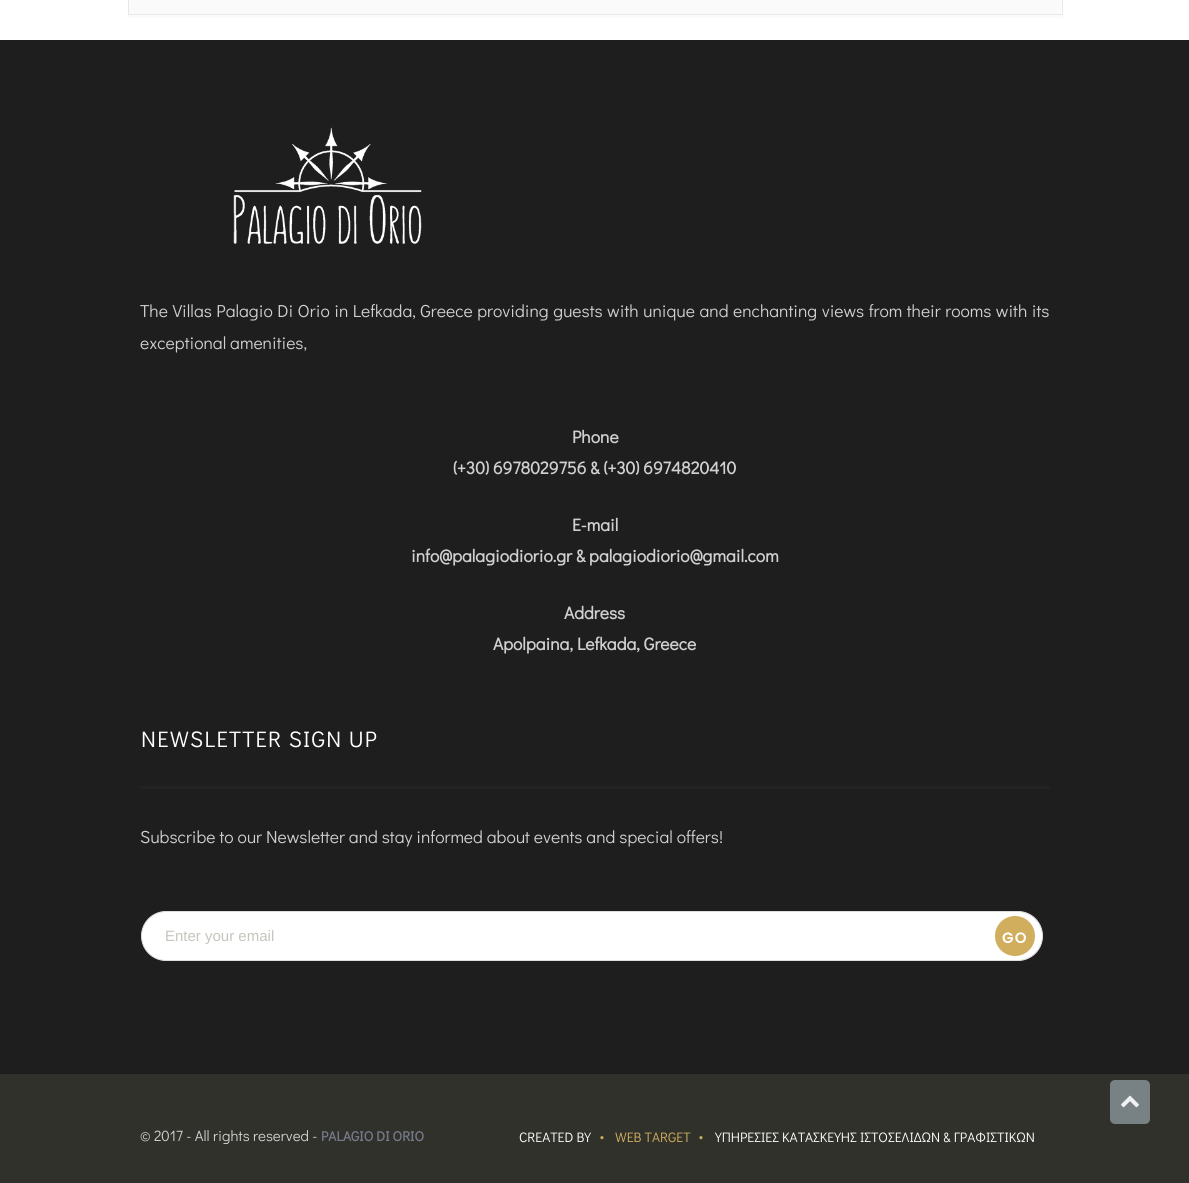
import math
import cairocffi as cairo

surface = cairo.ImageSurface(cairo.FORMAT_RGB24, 1189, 1183)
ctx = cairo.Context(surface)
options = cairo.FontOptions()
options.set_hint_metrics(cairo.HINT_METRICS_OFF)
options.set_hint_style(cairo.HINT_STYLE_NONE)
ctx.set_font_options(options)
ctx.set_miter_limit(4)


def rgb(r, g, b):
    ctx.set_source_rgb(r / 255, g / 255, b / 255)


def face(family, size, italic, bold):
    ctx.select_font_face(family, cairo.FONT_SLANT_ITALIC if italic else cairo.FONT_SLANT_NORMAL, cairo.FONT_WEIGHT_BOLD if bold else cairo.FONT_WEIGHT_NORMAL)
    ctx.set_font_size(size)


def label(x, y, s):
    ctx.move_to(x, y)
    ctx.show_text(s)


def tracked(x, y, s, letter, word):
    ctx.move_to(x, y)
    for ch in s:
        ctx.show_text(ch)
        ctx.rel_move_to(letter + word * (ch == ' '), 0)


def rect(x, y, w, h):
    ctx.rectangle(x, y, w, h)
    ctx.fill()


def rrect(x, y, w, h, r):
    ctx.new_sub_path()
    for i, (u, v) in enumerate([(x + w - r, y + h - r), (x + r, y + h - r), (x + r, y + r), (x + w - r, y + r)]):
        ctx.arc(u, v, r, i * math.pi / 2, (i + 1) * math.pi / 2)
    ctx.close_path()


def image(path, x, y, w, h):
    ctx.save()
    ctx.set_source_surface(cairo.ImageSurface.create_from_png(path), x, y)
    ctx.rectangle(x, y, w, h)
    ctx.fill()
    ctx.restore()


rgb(255, 255, 255)
ctx.paint()
rgb(251, 251, 251)
ctx.new_path()
ctx.move_to(128, 15)
ctx.line_to(128, 18)
ctx.line_to(1063, 18)
ctx.line_to(1063, -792)
ctx.line_to(1062, -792)
ctx.line_to(1062, 15)
ctx.close_path()
ctx.fill()
ctx.rectangle(128.5, -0.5, 934, 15)
rgb(232, 232, 232)
ctx.set_line_width(1)
ctx.stroke()
rgb(250, 250, 250)
rect(129, 0, 932, 14)
rgb(30, 30, 30)
rect(0, 40, 1189, 1034)
image('image0.png', 233, 127, 189, 117)
face('Didact Gothic', 17.5, 0, 0)
rgb(208, 208, 208)
tracked(140, 317, 'The Villas Palagio Di Orio in Lefkada, Greece providing guests with unique and enchanting views from their rooms with its', 0, 0.6)
label(140, 349, 'exceptional amenities,')
face('Didact Gothic', 17.5, 0, 1)
label(572, 443, 'Phone')
label(453, 474, '(+30) 6978029756 & (+30) 6974820410')
label(572, 531, 'E-mail')
label(411, 562, 'info@palagiodiorio.gr & palagiodiorio@gmail.com')
label(564, 619, 'Address')
label(493, 650, 'Apolpaina, Lefkada, Greece')
rgb(35, 35, 35)
rect(140, 786, 910, 3)
face('Didact Gothic', 22.5, 0, 0)
rgb(255, 255, 255)
tracked(141, 747, 'NEWSLETTER SIGN UP', 1.25, 0)
face('Didact Gothic', 17.5, 0, 0)
rgb(208, 208, 208)
label(140, 843, 'Subscribe to our Newsletter and stay informed about events and special offers!')
rgb(255, 255, 255)
rrect(141.5, 911.5, 901, 49, 24.5)
ctx.fill_preserve()
rgb(221, 221, 221)
ctx.stroke()
face('Liberation Sans', 15, 0, 0)
rgb(197, 197, 190)
label(165, 941, 'Enter your email')
rgb(208, 174, 94)
ctx.new_path()
ctx.arc(1015, 936, 20, 0, 2 * math.pi)
ctx.fill()
face('Poppins SemiBold', 15, 0, 0)
rgb(255, 255, 255)
tracked(1002, 943, 'GO', 1.25, 0)
rgb(49, 49, 44)
rect(0, 1074, 1189, 109)
face('Didact Gothic', 15, 0, 0)
rgb(208, 208, 208)
label(140, 1141, '© 2017 - All rights reserved -')
face('Didact Gothic', 13.75, 0, 1)
rgb(118, 121, 137)
label(321, 1141, 'PALAGIO DI ORIO')
face('Didact Gothic', 13.75, 0, 0)
rgb(255, 255, 255)
label(519, 1142, 'CREATED BY')
face('Didact Gothic', 29, 0, 0)
rgb(208, 174, 94)
label(599, 1139, '.')
face('Didact Gothic', 13.75, 0, 0)
label(615, 1142, 'WEB TARGET')
face('Didact Gothic', 29, 0, 0)
label(698, 1139, '.')
face('Didact Gothic', 13.75, 0, 0)
rgb(255, 255, 255)
label(715, 1142, 'ΥΠΗΡΕΣΙΕΣ ΚΑΤΑΣΚΕΥΗΣ ΙΣΤΟΣΕΛΙΔΩΝ & ΓΡΑΦΙΣΤΙΚΩΝ')
rgb(120, 130, 133)
rrect(1110, 1080, 40, 44, 5)
ctx.fill()
image('image1.png', 1121, 1095, 18, 13)
surface.write_to_png('render.png')
